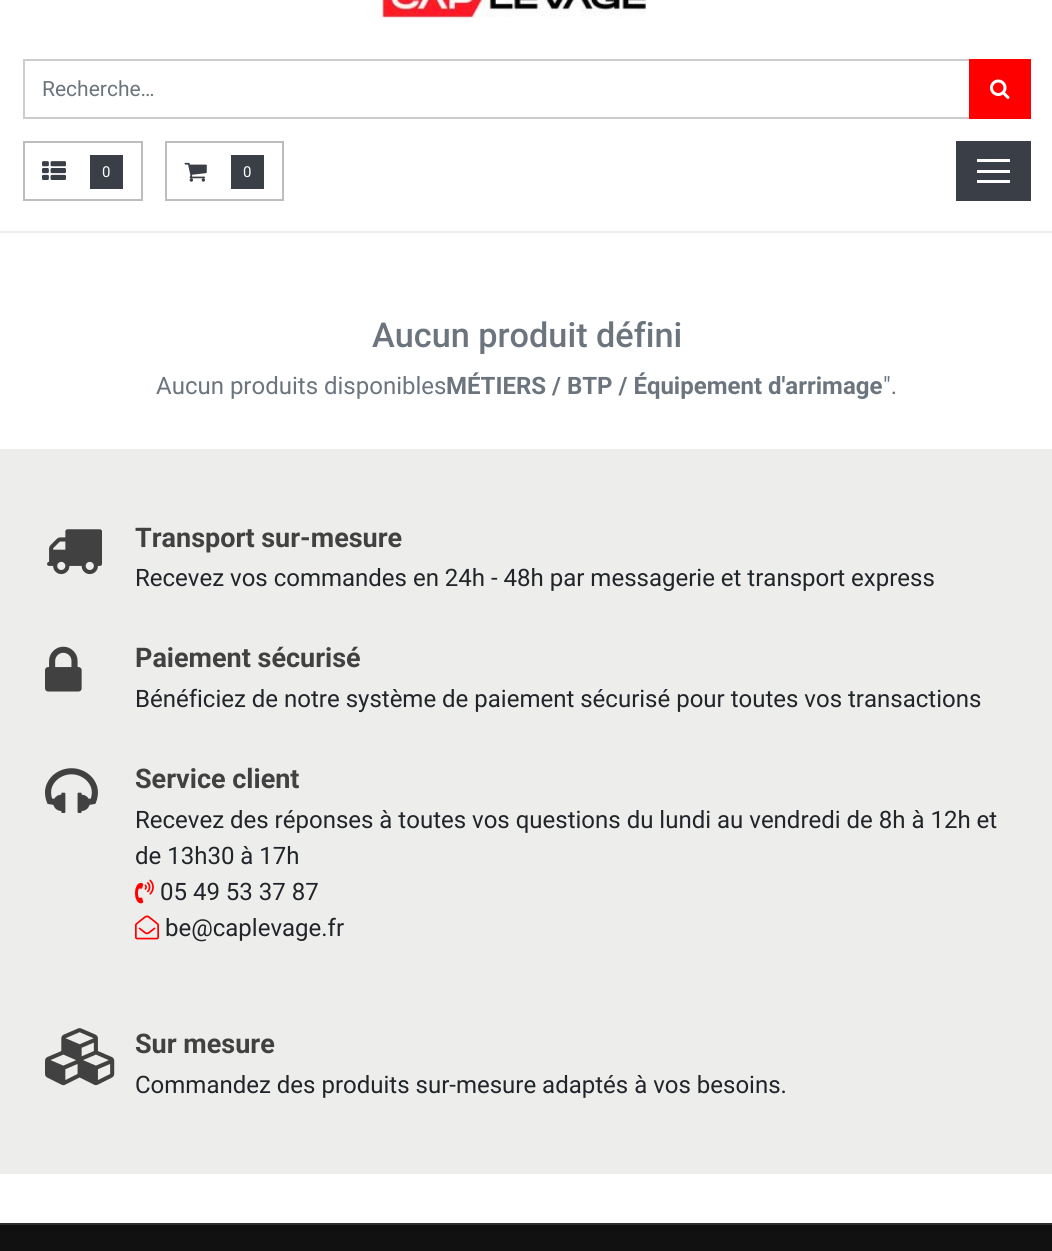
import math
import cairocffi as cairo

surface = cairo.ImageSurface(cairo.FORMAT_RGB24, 1052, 1251)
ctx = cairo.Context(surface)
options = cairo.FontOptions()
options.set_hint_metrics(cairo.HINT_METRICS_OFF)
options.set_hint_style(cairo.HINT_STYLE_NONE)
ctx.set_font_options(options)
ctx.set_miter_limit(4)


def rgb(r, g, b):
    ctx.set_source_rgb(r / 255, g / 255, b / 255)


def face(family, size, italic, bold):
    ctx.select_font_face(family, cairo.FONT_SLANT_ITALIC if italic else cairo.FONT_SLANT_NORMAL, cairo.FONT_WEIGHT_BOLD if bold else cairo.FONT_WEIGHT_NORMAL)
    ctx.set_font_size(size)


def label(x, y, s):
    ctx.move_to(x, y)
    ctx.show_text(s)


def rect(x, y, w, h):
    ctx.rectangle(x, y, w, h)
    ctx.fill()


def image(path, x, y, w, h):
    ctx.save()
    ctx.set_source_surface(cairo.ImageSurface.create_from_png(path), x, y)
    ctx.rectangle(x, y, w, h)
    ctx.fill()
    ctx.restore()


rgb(255, 255, 255)
ctx.paint()
image('image0.png', 376, 0, 270, 19)
ctx.rectangle(24, 60, 946, 58)
rgb(204, 204, 204)
ctx.stroke()
face('Roboto', 21, 0, 0)
rgb(108, 117, 125)
label(42, 96, 'Recherche…')
rgb(255, 0, 0)
rect(969, 59, 62, 60)
image('image1.png', 990, 79, 20, 20)
ctx.rectangle(24, 142, 118, 58)
rgb(189, 189, 189)
ctx.stroke()
image('image2.png', 42, 161, 24, 19)
rgb(58, 62, 70)
rect(90, 155, 33, 34)
face('Roboto', 15, 0, 0)
rgb(255, 255, 255)
label(102, 177, '0')
ctx.rectangle(166, 142, 117, 58)
rgb(189, 189, 189)
ctx.stroke()
image('image3.png', 184, 162, 23, 20)
rgb(58, 62, 70)
rect(231, 155, 33, 34)
rgb(255, 255, 255)
label(243, 177, '0')
rgb(58, 62, 70)
rect(956, 141, 75, 60)
rgb(255, 255, 255)
rect(977, 159, 33, 3)
rect(977, 180, 33, 3)
rect(977, 170, 33, 3)
rgb(238, 238, 238)
rect(0, 231, 1052, 2)
face('Roboto Medium', 34.25, 0, 0)
rgb(108, 117, 125)
label(372, 347, 'Aucun produit défini')
face('Roboto', 24, 0, 0)
label(156, 394, 'Aucun produits disponibles')
face('Roboto', 24, 0, 1)
label(446, 394, 'MÉTIERS / BTP / Équipement d\'arrimage')
face('Roboto', 24, 0, 0)
label(883, 394, '".')
rgb(237, 237, 236)
rect(0, 449, 1052, 725)
image('image4.png', 47, 529, 55, 46)
face('Roboto', 27, 0, 1)
rgb(65, 65, 65)
label(135, 547, 'Transport sur-mesure')
face('Roboto', 24, 0, 0)
rgb(33, 37, 41)
label(135, 586, 'Recevez vos commandes en 24h - 48h par messagerie et transport express')
image('image5.png', 45, 646, 37, 46)
face('Roboto', 27, 0, 1)
rgb(65, 65, 65)
label(135, 667, 'Paiement sécurisé')
face('Roboto', 24, 0, 0)
rgb(33, 37, 41)
label(135, 707, 'Bénéficiez de notre système de paiement sécurisé pour toutes vos transactions')
image('image6.png', 45, 768, 53, 45)
face('Roboto', 27, 0, 1)
rgb(65, 65, 65)
label(135, 788, 'Service client')
face('Roboto', 24, 0, 0)
rgb(33, 37, 41)
label(135, 828, 'Recevez des réponses à toutes vos questions du lundi au vendredi de 8h à 12h et')
label(135, 864, 'de 13h30 à 17h')
image('image7.png', 135, 879, 19, 25)
label(160, 900, '05 49 53 37 87')
image('image8.png', 135, 915, 24, 25)
label(165, 936, 'be@caplevage.fr')
image('image9.png', 45, 1028, 70, 58)
face('Roboto', 27, 0, 1)
rgb(65, 65, 65)
label(135, 1053, 'Sur mesure')
face('Roboto', 24, 0, 0)
rgb(33, 37, 41)
label(135, 1093, 'Commandez des produits sur-mesure adaptés à vos besoins.')
rgb(17, 17, 17)
rect(0, 1225, 1052, 26)
rgb(46, 46, 46)
rect(0, 1223, 1052, 2)
surface.write_to_png('render.png')
